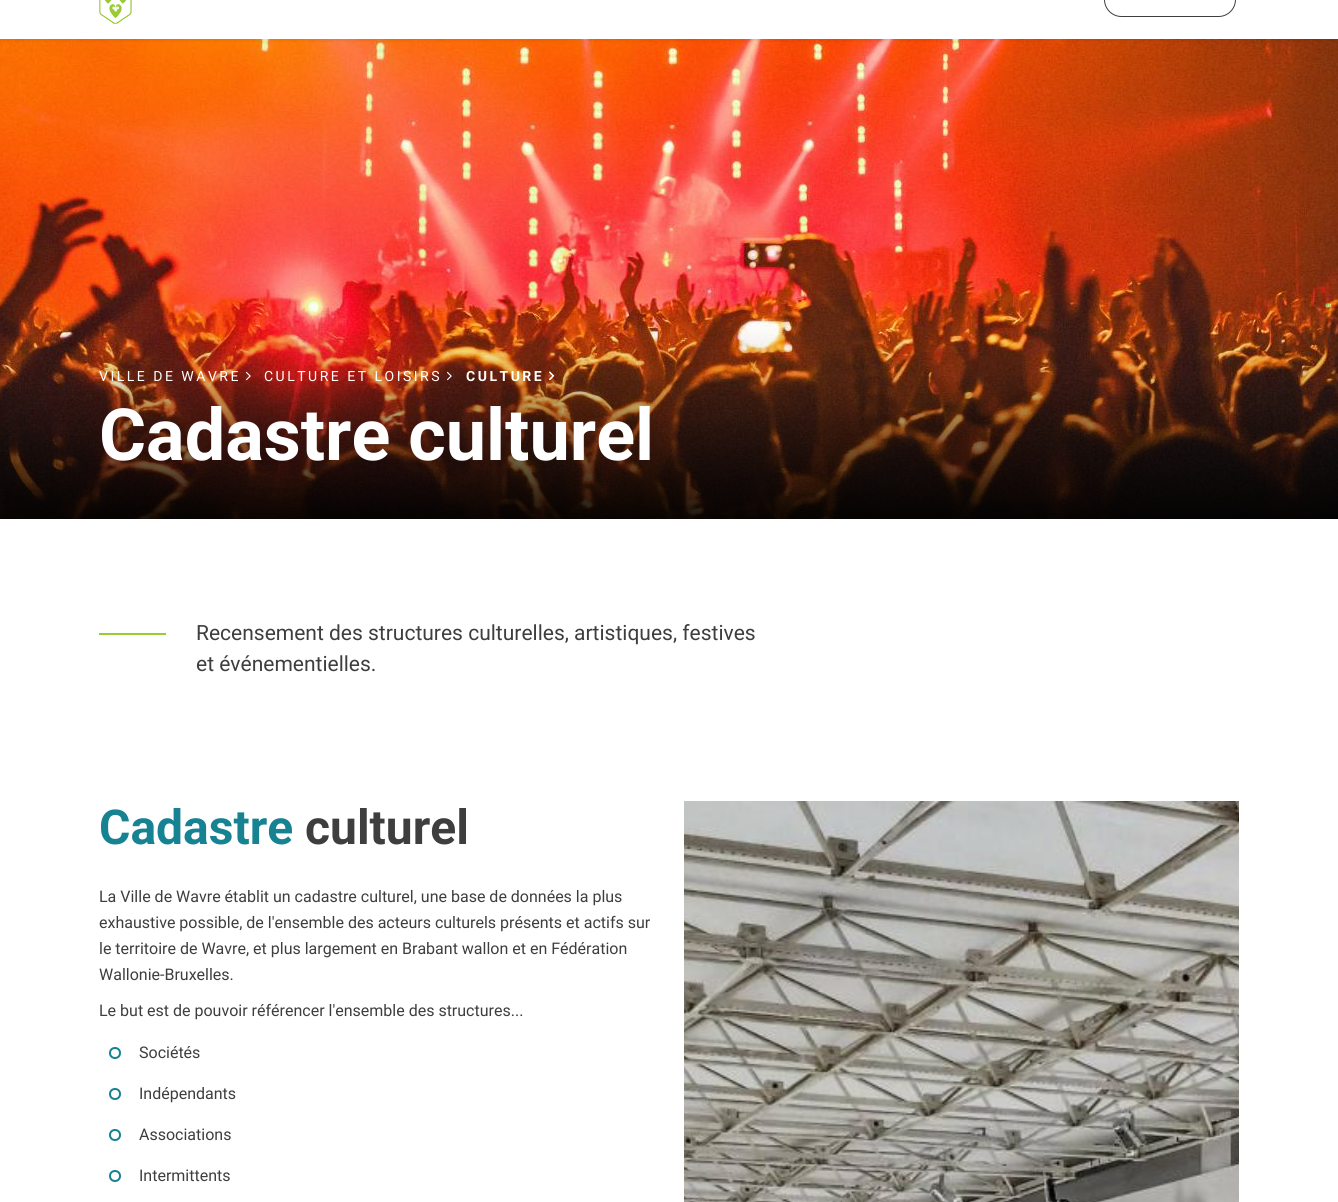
import math
import cairocffi as cairo

surface = cairo.ImageSurface(cairo.FORMAT_RGB24, 1338, 1202)
ctx = cairo.Context(surface)
options = cairo.FontOptions()
options.set_hint_metrics(cairo.HINT_METRICS_OFF)
options.set_hint_style(cairo.HINT_STYLE_NONE)
ctx.set_font_options(options)
ctx.set_miter_limit(4)


def rgb(r, g, b):
    ctx.set_source_rgb(r / 255, g / 255, b / 255)


def face(family, size, italic, bold):
    ctx.select_font_face(family, cairo.FONT_SLANT_ITALIC if italic else cairo.FONT_SLANT_NORMAL, cairo.FONT_WEIGHT_BOLD if bold else cairo.FONT_WEIGHT_NORMAL)
    ctx.set_font_size(size)


def label(x, y, s):
    ctx.move_to(x, y)
    ctx.show_text(s)


def tracked(x, y, s, letter, word):
    ctx.move_to(x, y)
    for ch in s:
        ctx.show_text(ch)
        ctx.rel_move_to(letter + word * (ch == ' '), 0)


def rect(x, y, w, h):
    ctx.rectangle(x, y, w, h)
    ctx.fill()


def rrect(x, y, w, h, r):
    ctx.new_sub_path()
    for i, (u, v) in enumerate([(x + w - r, y + h - r), (x + r, y + h - r), (x + r, y + r), (x + w - r, y + r)]):
        ctx.arc(u, v, r, i * math.pi / 2, (i + 1) * math.pi / 2)
    ctx.close_path()


def soft_shadow(x, y, w, h, r, blur, alpha):
    ctx.push_group_with_content(cairo.CONTENT_ALPHA)
    ctx.set_operator(cairo.OPERATOR_SOURCE)
    for i in range(15, -16, -2):
        e = blur * i / 6
        if min(w, h) + 2 * e > 0:
            ctx.set_source_rgba(0, 0, 0, alpha * math.erfc((i - 1) / 8.5) / 2)
            rrect(x - e, y - e, w + 2 * e, h + 2 * e, max(0, min(r + e + blur * .6, min(w, h) / 2 + e)))
            ctx.fill()
    ctx.mask(ctx.pop_group())


def image(path, x, y, w, h):
    ctx.save()
    ctx.set_source_surface(cairo.ImageSurface.create_from_png(path), x, y)
    ctx.rectangle(x, y, w, h)
    ctx.fill()
    ctx.restore()


rgb(255, 255, 255)
ctx.paint()
image('image1.png', 0, 39, 1338, 480)
ctx.save()
ctx.rectangle(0, 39, 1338, 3)
ctx.clip()
rgb(0, 0, 0)
soft_shadow(0, -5, 1338, 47, 0, 1.5, 0.05)
ctx.restore()
image('image0.png', 99, 0, 33, 24)
rrect(1104.5, -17.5, 131, 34, 17)
rgb(62, 62, 62)
ctx.set_line_width(1)
ctx.stroke()
face('Roboto', 14, 0, 0)
rgb(255, 255, 255)
tracked(99, 381, 'VILLE DE WAVRE', 2.5, 0)
face('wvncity', 15, 0, 0)
tracked(241, 383, '3', 2.5, 0)
face('Roboto', 14, 0, 0)
tracked(264, 381, 'CULTURE ET LOISIRS', 2.5, 0)
face('wvncity', 15, 0, 0)
tracked(442, 383, '3', 2.5, 0)
face('Roboto', 14, 0, 1)
tracked(466, 381, 'CULTURE', 2.5, 0)
face('wvncity', 15, 0, 1)
tracked(544, 383, '3', 2.5, 0)
face('Roboto', 72, 0, 1)
label(99, 460, 'Cadastre culturel')
rgb(153, 204, 51)
rect(99, 633, 67, 2)
face('Roboto', 21, 0, 0)
rgb(62, 62, 62)
label(196, 640, 'Recensement des structures culturelles, artistiques, festives')
label(196, 671, 'et événementielles.')
face('Roboto', 48, 0, 1)
rgb(22, 130, 146)
label(99, 844, 'Cadastre')
rgb(62, 62, 62)
label(305, 844, 'culturel')
face('Roboto', 16, 0, 0)
label(99, 902, 'La Ville de Wavre établit un cadastre culturel, une base de données la plus')
label(99, 928, 'exhaustive possible, de l\'ensemble des acteurs culturels présents et actifs sur')
label(99, 954, 'le territoire de Wavre, et plus largement en Brabant wallon et en Fédération')
label(99, 980, 'Wallonie-Bruxelles.')
label(99, 1016, 'Le but est de pouvoir référencer l\'ensemble des structures...')
ctx.new_path()
ctx.arc(115, 1053, 5, 0, 2 * math.pi)
rgb(22, 130, 146)
ctx.set_line_width(2)
ctx.stroke()
rgb(62, 62, 62)
label(139, 1058, 'Sociétés')
ctx.new_path()
ctx.arc(115, 1094, 5, 0, 2 * math.pi)
rgb(22, 130, 146)
ctx.stroke()
rgb(62, 62, 62)
label(139, 1099, 'Indépendants')
ctx.new_path()
ctx.arc(115, 1135, 5, 0, 2 * math.pi)
rgb(22, 130, 146)
ctx.stroke()
rgb(62, 62, 62)
label(139, 1140, 'Associations')
ctx.new_path()
ctx.arc(115, 1176, 5, 0, 2 * math.pi)
rgb(22, 130, 146)
ctx.stroke()
rgb(62, 62, 62)
label(139, 1181, 'Intermittents')
image('image2.png', 684, 801, 555, 401)
surface.write_to_png('render.png')
